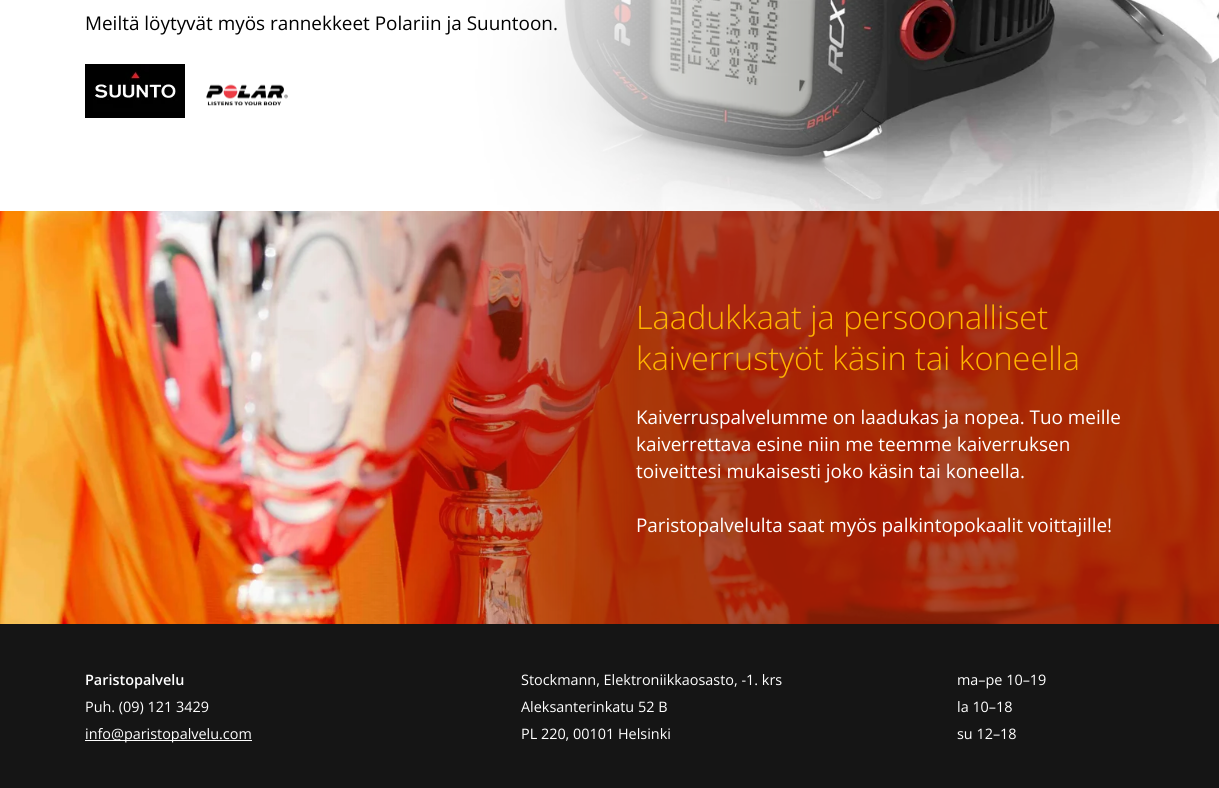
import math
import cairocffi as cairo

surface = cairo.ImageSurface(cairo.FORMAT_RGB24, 1219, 788)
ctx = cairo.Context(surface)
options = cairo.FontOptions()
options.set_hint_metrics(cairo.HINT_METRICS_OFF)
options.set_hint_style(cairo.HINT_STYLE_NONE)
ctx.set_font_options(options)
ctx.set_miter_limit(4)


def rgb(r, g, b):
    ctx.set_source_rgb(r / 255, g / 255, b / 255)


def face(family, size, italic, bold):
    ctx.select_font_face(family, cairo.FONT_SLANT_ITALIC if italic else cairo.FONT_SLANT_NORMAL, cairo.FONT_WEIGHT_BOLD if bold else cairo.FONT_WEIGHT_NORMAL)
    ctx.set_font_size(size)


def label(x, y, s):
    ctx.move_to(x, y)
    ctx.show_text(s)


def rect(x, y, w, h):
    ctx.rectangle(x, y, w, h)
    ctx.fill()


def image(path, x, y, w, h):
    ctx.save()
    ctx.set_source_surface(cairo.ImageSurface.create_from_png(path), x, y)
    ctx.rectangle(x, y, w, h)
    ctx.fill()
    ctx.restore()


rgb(21, 21, 21)
ctx.paint()
rgb(255, 255, 255)
rect(0, 0, 475, 211)
image('image0.png', 475, 0, 744, 211)
gradient = cairo.LinearGradient(-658, -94, 1170, -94)
gradient.add_color_stop_rgba(0.68, 1, 1, 1, 0.8)
gradient.add_color_stop_rgba(0.85, 1, 1, 1, 0)
gradient.add_color_stop_rgba(1, 1, 1, 1, 0)
ctx.set_source(gradient)
rect(475, 0, 412, 211)
face('Open Sans', 18.9, 0, 0)
rgb(0, 0, 0)
label(85, 30, 'Meiltä löytyvät myös rannekkeet Polariin ja Suuntoon.')
image('image1.png', 85, 64, 100, 54)
image('image2.png', 206, 84, 82, 22)
image('image3.png', 0, 211, 1219, 413)
face('Open Sans Light', 32.4, 0, 0)
rgb(255, 179, 0)
label(636, 329, 'Laadukkaat ja persoonalliset')
label(636, 370, 'kaiverrustyöt käsin tai koneella')
face('Open Sans', 18.9, 0, 0)
rgb(255, 255, 255)
label(636, 424, 'Kaiverruspalvelumme on laadukas ja nopea. Tuo meille')
label(636, 451, 'kaiverrettava esine niin me teemme kaiverruksen')
label(636, 478, 'toiveittesi mukaisesti joko käsin tai koneella.')
label(636, 532, 'Paristopalvelulta saat myös palkintopokaalit voittajille!')
face('Open Sans SemiBold', 14.4, 0, 0)
label(85, 685, 'Paristopalvelu')
face('Open Sans', 14.4, 0, 0)
label(85, 712, 'Puh. (09) 121 3429')
rect(85, 740, 167, 1)
label(85, 739, 'info@paristopalvelu.com')
label(521, 685, 'Stockmann, Elektroniikkaosasto, -1. krs')
label(521, 712, 'Aleksanterinkatu 52 B')
label(521, 739, 'PL 220, 00101 Helsinki')
label(957, 685, 'ma–pe 10–19')
label(957, 712, 'la 10–18')
label(957, 739, 'su 12–18')
surface.write_to_png('render.png')
